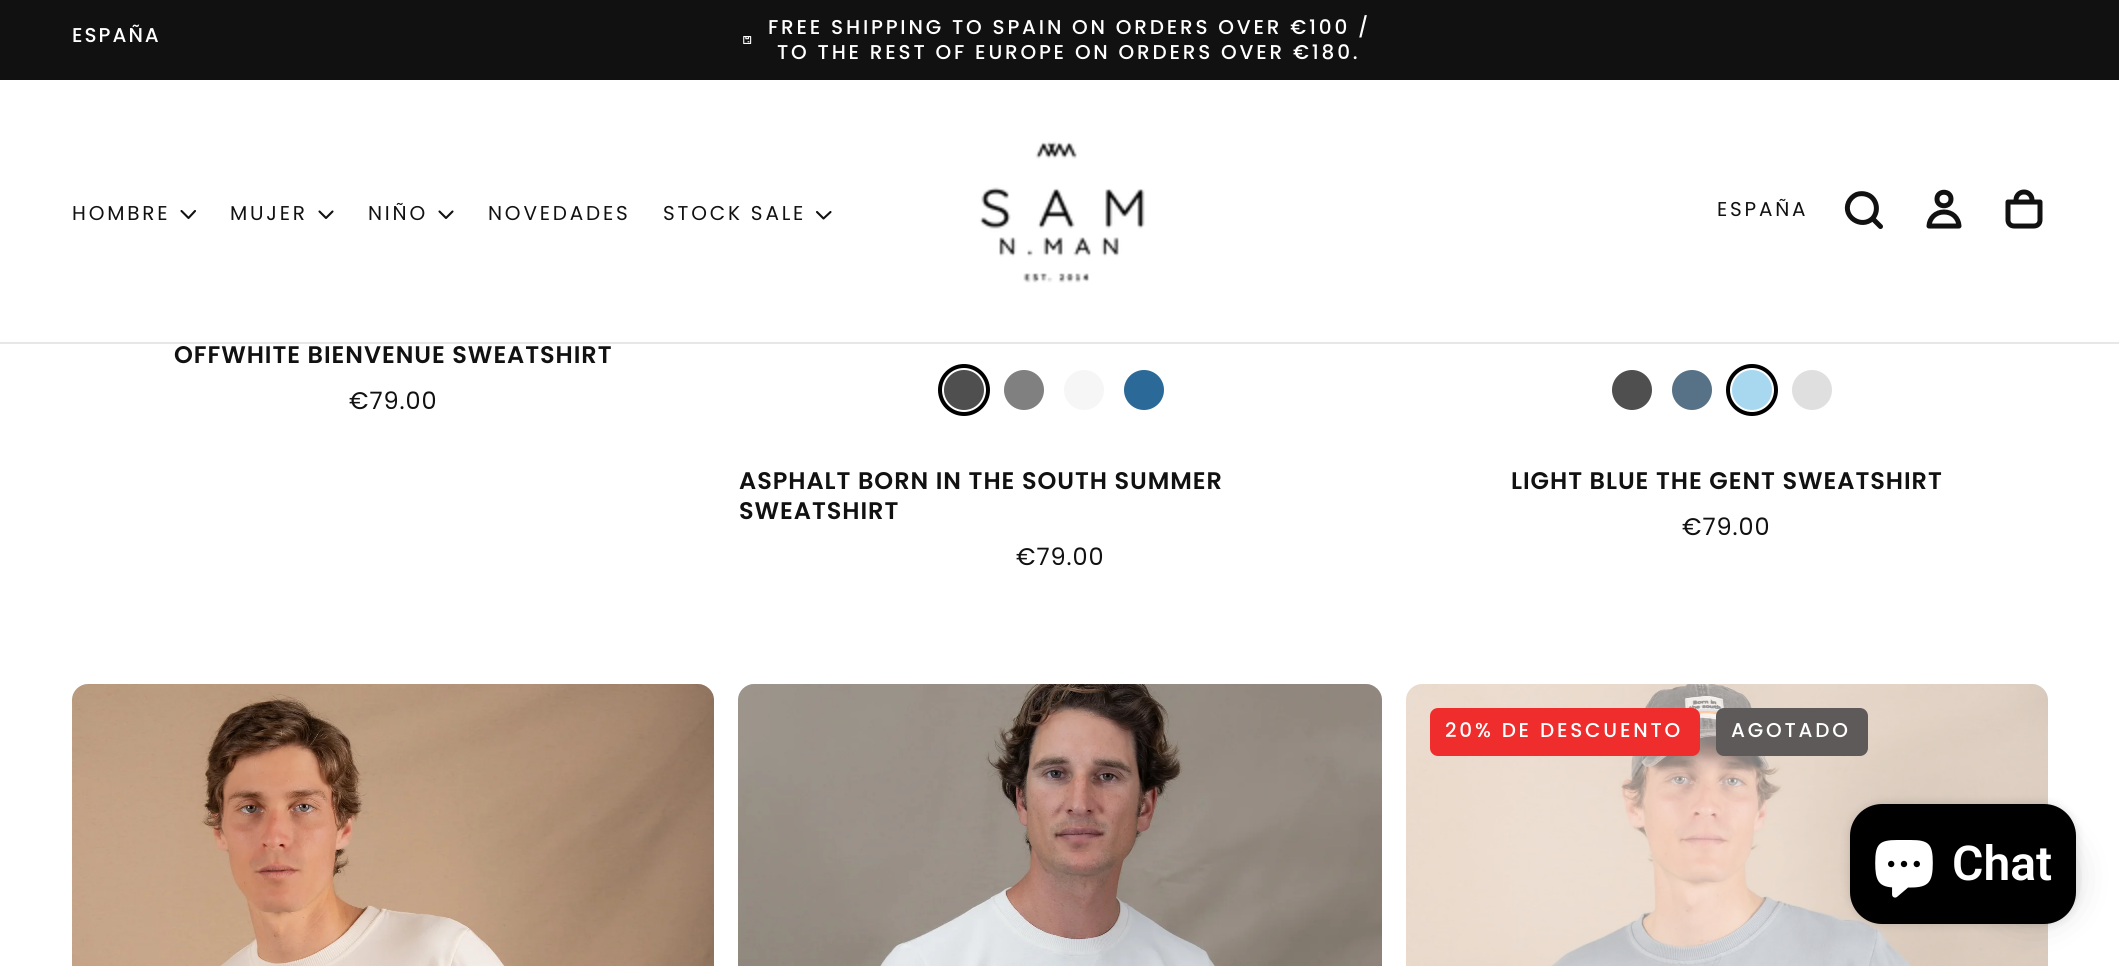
import math
import cairocffi as cairo

surface = cairo.ImageSurface(cairo.FORMAT_RGB24, 2119, 966)
ctx = cairo.Context(surface)
options = cairo.FontOptions()
options.set_hint_metrics(cairo.HINT_METRICS_OFF)
options.set_hint_style(cairo.HINT_STYLE_NONE)
ctx.set_font_options(options)
ctx.set_miter_limit(4)


def rgb(r, g, b):
    ctx.set_source_rgb(r / 255, g / 255, b / 255)


def face(family, size, italic, bold):
    ctx.select_font_face(family, cairo.FONT_SLANT_ITALIC if italic else cairo.FONT_SLANT_NORMAL, cairo.FONT_WEIGHT_BOLD if bold else cairo.FONT_WEIGHT_NORMAL)
    ctx.set_font_size(size)


def label(x, y, s):
    ctx.move_to(x, y)
    ctx.show_text(s)


def tracked(x, y, s, letter, word):
    ctx.move_to(x, y)
    for ch in s:
        ctx.show_text(ch)
        ctx.rel_move_to(letter + word * (ch == ' '), 0)


def rect(x, y, w, h):
    ctx.rectangle(x, y, w, h)
    ctx.fill()


def rrect(x, y, w, h, r):
    ctx.new_sub_path()
    for i, (u, v) in enumerate([(x + w - r, y + h - r), (x + r, y + h - r), (x + r, y + r), (x + w - r, y + r)]):
        ctx.arc(u, v, r, i * math.pi / 2, (i + 1) * math.pi / 2)
    ctx.close_path()


def soft_shadow(x, y, w, h, r, blur, alpha):
    ctx.push_group_with_content(cairo.CONTENT_ALPHA)
    ctx.set_operator(cairo.OPERATOR_SOURCE)
    for i in range(15, -16, -2):
        e = blur * i / 6
        if min(w, h) + 2 * e > 0:
            ctx.set_source_rgba(0, 0, 0, alpha * math.erfc((i - 1) / 8.5) / 2)
            rrect(x - e, y - e, w + 2 * e, h + 2 * e, max(0, min(r + e + blur * .6, min(w, h) / 2 + e)))
            ctx.fill()
    ctx.mask(ctx.pop_group())


def image(path, x, y, w, h):
    ctx.save()
    ctx.set_source_surface(cairo.ImageSurface.create_from_png(path), x, y)
    ctx.rectangle(x, y, w, h)
    ctx.fill()
    ctx.restore()


rgb(255, 255, 255)
ctx.paint()
rgb(17, 17, 17)
rect(0, 0, 2119, 80)
face('Poppins Medium', 20, 0, 0)
rgb(255, 255, 255)
tracked(72, 42, 'ESPAÑA', 2, 0)
image('image0.png', 743, 36, 9, 8)
tracked(768, 34, 'FREE SHIPPING TO SPAIN ON ORDERS OVER €100 /', 2.8, 0)
tracked(777, 59, 'TO THE REST OF EUROPE ON ORDERS OVER €180.', 2.8, 0)
rgb(231, 231, 231)
rect(0, 342, 2119, 2)
face('Poppins', 20, 0, 0)
rgb(17, 17, 17)
tracked(72, 220, 'HOMBRE', 2.8, 0)
ctx.new_path()
ctx.move_to(195, 211)
ctx.line_to(188.5, 218)
ctx.line_to(181.5, 211)
ctx.set_line_width(2.1)
ctx.set_line_cap(cairo.LINE_CAP_ROUND)
ctx.set_line_join(cairo.LINE_JOIN_ROUND)
ctx.stroke()
tracked(230, 220, 'MUJER', 2.8, 0)
ctx.new_path()
ctx.move_to(332.5, 211.5)
ctx.line_to(326, 218)
ctx.line_to(319.5, 211.5)
ctx.stroke()
tracked(368, 220, 'NIÑO', 2.8, 0)
ctx.new_path()
ctx.move_to(452.5, 211.5)
ctx.line_to(446, 218)
ctx.line_to(439.5, 211.5)
ctx.stroke()
tracked(488, 220, 'NOVEDADES', 2.8, 0)
tracked(663, 220, 'STOCK SALE', 2.8, 0)
ctx.new_path()
ctx.move_to(830.5, 212)
ctx.line_to(823.5, 218.5)
ctx.line_to(817, 212)
ctx.stroke()
image('image1.png', 979, 141, 166, 142)
tracked(1717, 216, 'ESPAÑA', 2.8, 0)
ctx.new_path()
ctx.move_to(1880.5, 226.5)
ctx.line_to(1872.5, 218.5)
ctx.move_to(1872.5, 218.5)
ctx.curve_to(1878.5, 212, 1877.5, 201, 1870, 196)
ctx.curve_to(1866, 193.5, 1861, 193, 1856.5, 194.5)
ctx.curve_to(1853, 196, 1850, 199, 1848.5, 202.5)
ctx.curve_to(1842.5, 217, 1861.5, 229, 1872.5, 218.5)
ctx.close_path()
ctx.set_line_width(5)
ctx.stroke()
ctx.new_path()
ctx.move_to(1951, 199)
ctx.curve_to(1951, 208, 1937, 208, 1937, 199)
ctx.curve_to(1937, 190, 1951, 190, 1951, 199)
ctx.close_path()
ctx.move_to(1944, 212)
ctx.curve_to(1935.5, 212, 1929.5, 218, 1929, 226)
ctx.line_to(1959, 226)
ctx.curve_to(1958.5, 218, 1952.5, 212, 1944, 212)
ctx.close_path()
ctx.set_line_cap(cairo.LINE_CAP_BUTT)
ctx.stroke()
ctx.new_path()
ctx.move_to(2008, 202)
ctx.line_to(2040, 202)
ctx.line_to(2040, 220)
ctx.curve_to(2040, 223.5, 2037.5, 226, 2034, 226)
ctx.line_to(2014, 226)
ctx.curve_to(2010.5, 226, 2008, 223.5, 2008, 220)
ctx.close_path()
ctx.move_to(2016, 202)
ctx.line_to(2016, 200)
ctx.curve_to(2016, 195.5, 2019.5, 192, 2024, 192)
ctx.curve_to(2028.5, 192, 2032, 195.5, 2032, 200)
ctx.line_to(2032, 202)
ctx.stroke()
face('Poppins SemiBold', 24, 0, 0)
tracked(174, 363, 'OFFWHITE BIENVENUE SWEATSHIRT', 0.95, 0)
face('Poppins', 24, 0, 0)
tracked(349, 409, '€79.00', 0.95, 0)
rgb(79, 79, 79)
ctx.new_path()
ctx.arc(964, 390, 20, 0, 2 * math.pi)
ctx.fill()
ctx.arc(964, 390, 24, 0, 2 * math.pi)
rgb(0, 0, 0)
ctx.set_line_width(4)
ctx.set_line_join(cairo.LINE_JOIN_MITER)
ctx.stroke()
rgb(128, 128, 128)
ctx.arc(1024, 390, 20, 0, 2 * math.pi)
ctx.fill()
rgb(246, 246, 246)
ctx.arc(1084, 390, 20, 0, 2 * math.pi)
ctx.fill()
rgb(43, 106, 152)
ctx.arc(1144, 390, 20, 0, 2 * math.pi)
ctx.fill()
face('Poppins SemiBold', 24, 0, 0)
rgb(17, 17, 17)
tracked(739, 489, 'ASPHALT BORN IN THE SOUTH SUMMER', 0.95, 0)
tracked(739, 519, 'SWEATSHIRT', 0.95, 0)
face('Poppins', 24, 0, 0)
tracked(1016, 565, '€79.00', 0.95, 0)
rgb(79, 79, 79)
ctx.new_path()
ctx.arc(1632, 390, 20, 0, 2 * math.pi)
ctx.fill()
rgb(87, 114, 135)
ctx.arc(1692, 390, 20, 0, 2 * math.pi)
ctx.fill()
rgb(168, 216, 240)
ctx.arc(1752, 390, 20, 0, 2 * math.pi)
ctx.fill()
ctx.arc(1752, 390, 24, 0, 2 * math.pi)
rgb(0, 0, 0)
ctx.stroke()
rgb(223, 223, 223)
ctx.arc(1812, 390, 20, 0, 2 * math.pi)
ctx.fill()
face('Poppins SemiBold', 24, 0, 0)
rgb(17, 17, 17)
tracked(1511, 489, 'LIGHT BLUE THE GENT SWEATSHIRT', 0.95, 0)
face('Poppins', 24, 0, 0)
tracked(1682, 535, '€79.00', 0.95, 0)
image('image2.png', 72, 684, 642, 282)
image('image3.png', 738, 684, 644, 282)
image('image4.png', 1406, 684, 642, 282)
rgb(239, 45, 45)
rrect(1430, 708, 270, 48, 8)
ctx.fill()
face('Poppins Medium', 20, 0, 0)
rgb(255, 255, 255)
tracked(1445, 737, '20% DE DESCUENTO', 2.8, 0)
rgb(94, 90, 89)
rrect(1716, 708, 152, 48, 8)
ctx.fill()
rgb(255, 255, 255)
tracked(1731, 737, 'AGOTADO', 2.8, 0)
rgb(0, 0, 0)
soft_shadow(1992, 838, 80, 80, 40, 20, 0.15)
soft_shadow(1850, 804, 226, 120, 32, 5, 0.15)
rgb(0, 0, 0)
rrect(1850, 804, 226, 120, 32)
ctx.fill()
image('image5.png', 1875, 840, 58, 58)
face('Roboto SemiBold', 48, 0, 0)
rgb(255, 255, 255)
label(1952, 880, 'Chat')
surface.write_to_png('render.png')
